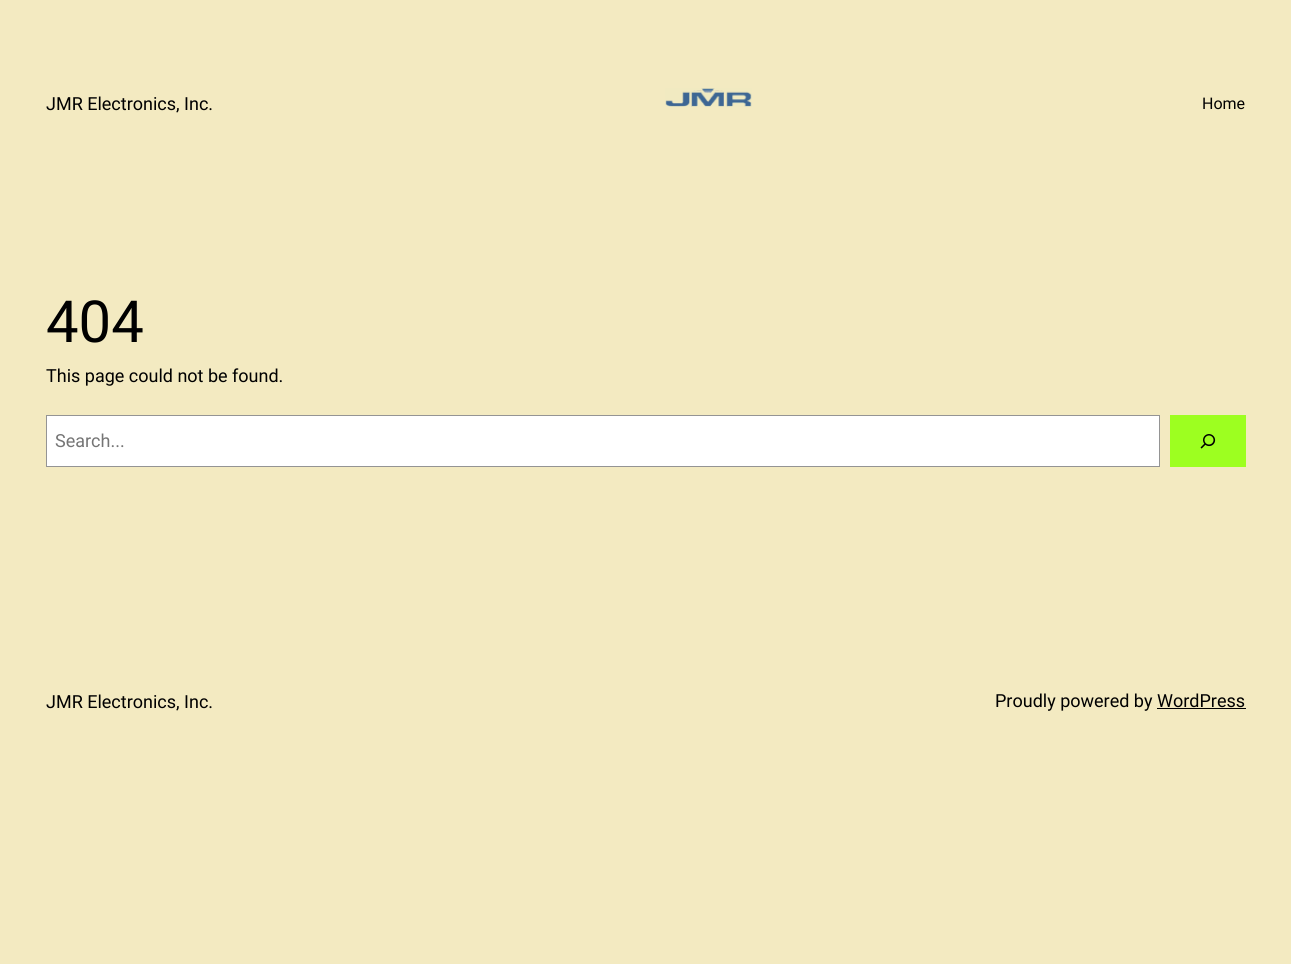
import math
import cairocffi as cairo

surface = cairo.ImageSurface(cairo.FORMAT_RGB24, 1291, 964)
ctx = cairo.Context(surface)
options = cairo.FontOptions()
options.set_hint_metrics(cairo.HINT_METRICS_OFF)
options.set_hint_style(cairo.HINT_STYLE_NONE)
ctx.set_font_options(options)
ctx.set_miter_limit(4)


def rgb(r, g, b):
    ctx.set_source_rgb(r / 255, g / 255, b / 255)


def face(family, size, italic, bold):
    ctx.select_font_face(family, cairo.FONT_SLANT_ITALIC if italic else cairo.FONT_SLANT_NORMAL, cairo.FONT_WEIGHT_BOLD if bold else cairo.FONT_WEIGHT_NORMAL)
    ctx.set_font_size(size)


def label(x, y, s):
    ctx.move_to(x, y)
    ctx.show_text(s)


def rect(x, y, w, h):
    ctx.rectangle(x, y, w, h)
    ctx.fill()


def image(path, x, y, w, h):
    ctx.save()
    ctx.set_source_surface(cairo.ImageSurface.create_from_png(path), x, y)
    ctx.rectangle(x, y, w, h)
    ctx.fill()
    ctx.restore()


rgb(243, 234, 193)
ctx.paint()
face('Roboto', 18, 0, 0)
rgb(0, 0, 0)
label(46, 110, 'JMR Electronics, Inc.')
image('image0.png', 665, 88, 87, 19)
face('Roboto', 16, 0, 0)
label(1202, 109, 'Home')
face('Roboto', 58, 0, 0)
label(46, 342, '404')
face('Roboto', 18, 0, 0)
label(46, 382, 'This page could not be found.')
rgb(255, 255, 255)
ctx.rectangle(46.5, 415.5, 1113, 51)
ctx.fill_preserve()
rgb(148, 148, 148)
ctx.set_line_width(1)
ctx.stroke()
rgb(117, 117, 117)
label(55, 447, 'Search...')
rgb(157, 255, 32)
rect(1170, 415, 76, 52)
image('image1.png', 1200, 434, 16, 15)
rgb(0, 0, 0)
label(46, 708, 'JMR Electronics, Inc.')
label(995, 707, 'Proudly powered by WordPress')
rect(1157, 708, 89, 1)
surface.write_to_png('render.png')
